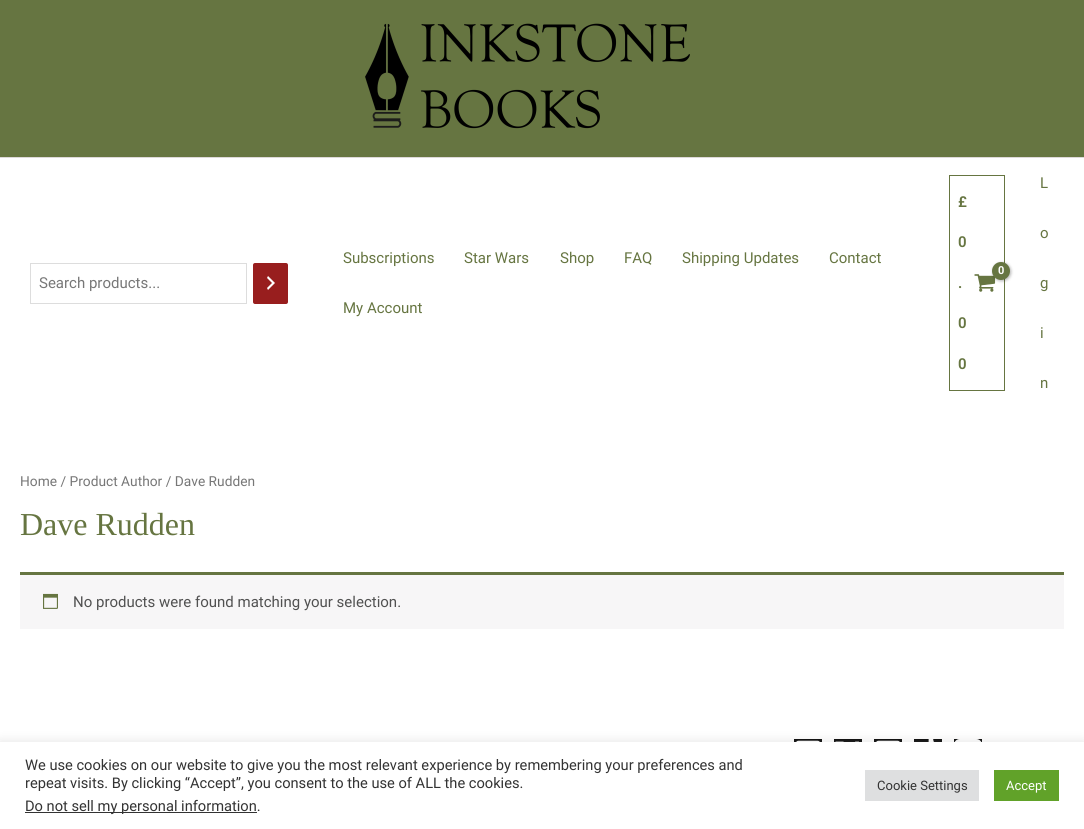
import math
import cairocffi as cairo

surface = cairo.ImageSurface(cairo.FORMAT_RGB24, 1084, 829)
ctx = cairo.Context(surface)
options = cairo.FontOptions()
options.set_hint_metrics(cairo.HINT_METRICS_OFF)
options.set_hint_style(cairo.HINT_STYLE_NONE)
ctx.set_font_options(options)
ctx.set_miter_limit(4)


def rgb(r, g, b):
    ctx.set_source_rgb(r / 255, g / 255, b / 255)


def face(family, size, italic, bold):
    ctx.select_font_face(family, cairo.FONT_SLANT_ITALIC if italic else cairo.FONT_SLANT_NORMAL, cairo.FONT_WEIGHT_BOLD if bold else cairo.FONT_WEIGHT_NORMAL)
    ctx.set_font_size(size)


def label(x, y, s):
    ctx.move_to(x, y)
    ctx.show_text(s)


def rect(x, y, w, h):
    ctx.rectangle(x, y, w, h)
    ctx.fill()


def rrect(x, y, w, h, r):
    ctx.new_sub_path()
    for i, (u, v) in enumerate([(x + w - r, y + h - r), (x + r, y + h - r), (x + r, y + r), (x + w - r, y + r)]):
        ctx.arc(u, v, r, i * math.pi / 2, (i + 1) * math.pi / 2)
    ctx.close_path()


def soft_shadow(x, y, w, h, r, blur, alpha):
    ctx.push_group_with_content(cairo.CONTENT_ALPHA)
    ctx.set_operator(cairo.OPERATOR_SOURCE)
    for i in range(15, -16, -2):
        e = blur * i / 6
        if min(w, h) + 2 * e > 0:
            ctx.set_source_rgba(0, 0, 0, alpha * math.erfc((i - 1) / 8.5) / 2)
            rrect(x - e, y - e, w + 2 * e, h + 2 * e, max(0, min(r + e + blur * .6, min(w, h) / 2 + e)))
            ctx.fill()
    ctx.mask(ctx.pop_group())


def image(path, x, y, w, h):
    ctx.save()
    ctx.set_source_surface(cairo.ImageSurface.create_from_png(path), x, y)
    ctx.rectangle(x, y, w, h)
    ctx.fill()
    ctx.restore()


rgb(255, 255, 255)
ctx.paint()
rgb(102, 117, 65)
rect(0, 0, 1084, 157)
rgb(221, 217, 217)
rect(0, 157, 1084, 1)
image('image0.png', 365, 23, 325, 106)
ctx.rectangle(30.5, 263.5, 216, 40)
rgb(221, 221, 221)
ctx.set_line_width(1)
ctx.stroke()
face('Roboto', 15, 0, 0)
rgb(119, 119, 119)
label(39, 288, 'Search products...')
rgb(152, 30, 30)
rrect(253, 263, 35, 41, 2)
ctx.fill()
image('image1.png', 267, 276, 8, 14)
rgb(102, 117, 65)
label(343, 263, 'Subscriptions')
label(464, 263, 'Star Wars')
label(560, 263, 'Shop')
label(624, 263, 'FAQ')
label(682, 263, 'Shipping Updates')
label(829, 263, 'Contact')
label(343, 313, 'My Account')
ctx.rectangle(949.5, 175.5, 55, 215)
ctx.stroke()
face('Roboto SemiBold', 15, 0, 0)
label(958, 207, '£')
label(958, 247, '0')
label(958, 288, '.')
label(958, 328, '0')
label(958, 369, '0')
image('image2.png', 974, 274, 22, 18)
rgb(0, 0, 0)
soft_shadow(993, 263, 18, 18, 9, 1.5, 0.3)
rgb(102, 117, 65)
ctx.arc(1001, 271, 9, 0, 2 * math.pi)
ctx.fill()
face('Roboto', 11, 0, 1)
rgb(255, 255, 255)
label(998, 274, '0')
face('Roboto', 15, 0, 0)
rgb(102, 117, 65)
label(1040, 188, 'L')
label(1040, 238, 'o')
label(1040, 288, 'g')
label(1040, 338, 'i')
label(1040, 388, 'n')
face('Roboto', 13.75, 0, 0)
rgb(119, 119, 119)
label(20, 486, 'Home / Product Author / Dave Rudden')
face('Liberation Serif', 32, 0, 0)
rgb(102, 117, 65)
label(20, 535, 'Dave Rudden')
rgb(247, 246, 247)
rect(20, 575, 1044, 54)
rgb(102, 117, 65)
rect(20, 572, 1044, 3)
image('image3.png', 43, 593, 15, 16)
face('Roboto', 15, 0, 0)
rgb(81, 81, 81)
label(73, 607, 'No products were found matching your selection.')
rgb(0, 0, 0)
rect(794, 739, 28, 3)
image('image4.png', 796, 740, 24, 2)
rect(834, 739, 28, 3)
image('image5.png', 835, 741, 24, 1)
rect(874, 739, 28, 3)
image('image4.png', 876, 740, 24, 2)
rect(914, 739, 28, 3)
image('image6.png', 928, 739, 6, 3)
rect(954, 739, 28, 3)
image('image7.png', 954, 739, 28, 3)
rgb(172, 171, 171)
soft_shadow(0, 741, 1084, 87, 0, 5, 0.3)
rgb(255, 255, 255)
rect(0, 742, 1084, 87)
face('Roboto', 14.65, 0, 0)
rgb(51, 51, 51)
label(25, 770, 'We use cookies on our website to give you the most relevant experience by remembering your preferences and')
label(25, 788, 'repeat visits. By clicking “Accept”, you consent to the use of ALL the cookies.')
rect(25, 812, 232, 1)
label(25, 811, 'Do not sell my personal information.')
rgb(222, 223, 224)
rect(865, 770, 114, 31)
face('Roboto', 13, 0, 0)
rgb(51, 51, 51)
label(877, 790, 'Cookie Settings')
rgb(97, 162, 41)
rect(994, 770, 65, 31)
rgb(255, 255, 255)
label(1006, 790, 'Accept')
surface.write_to_png('render.png')
